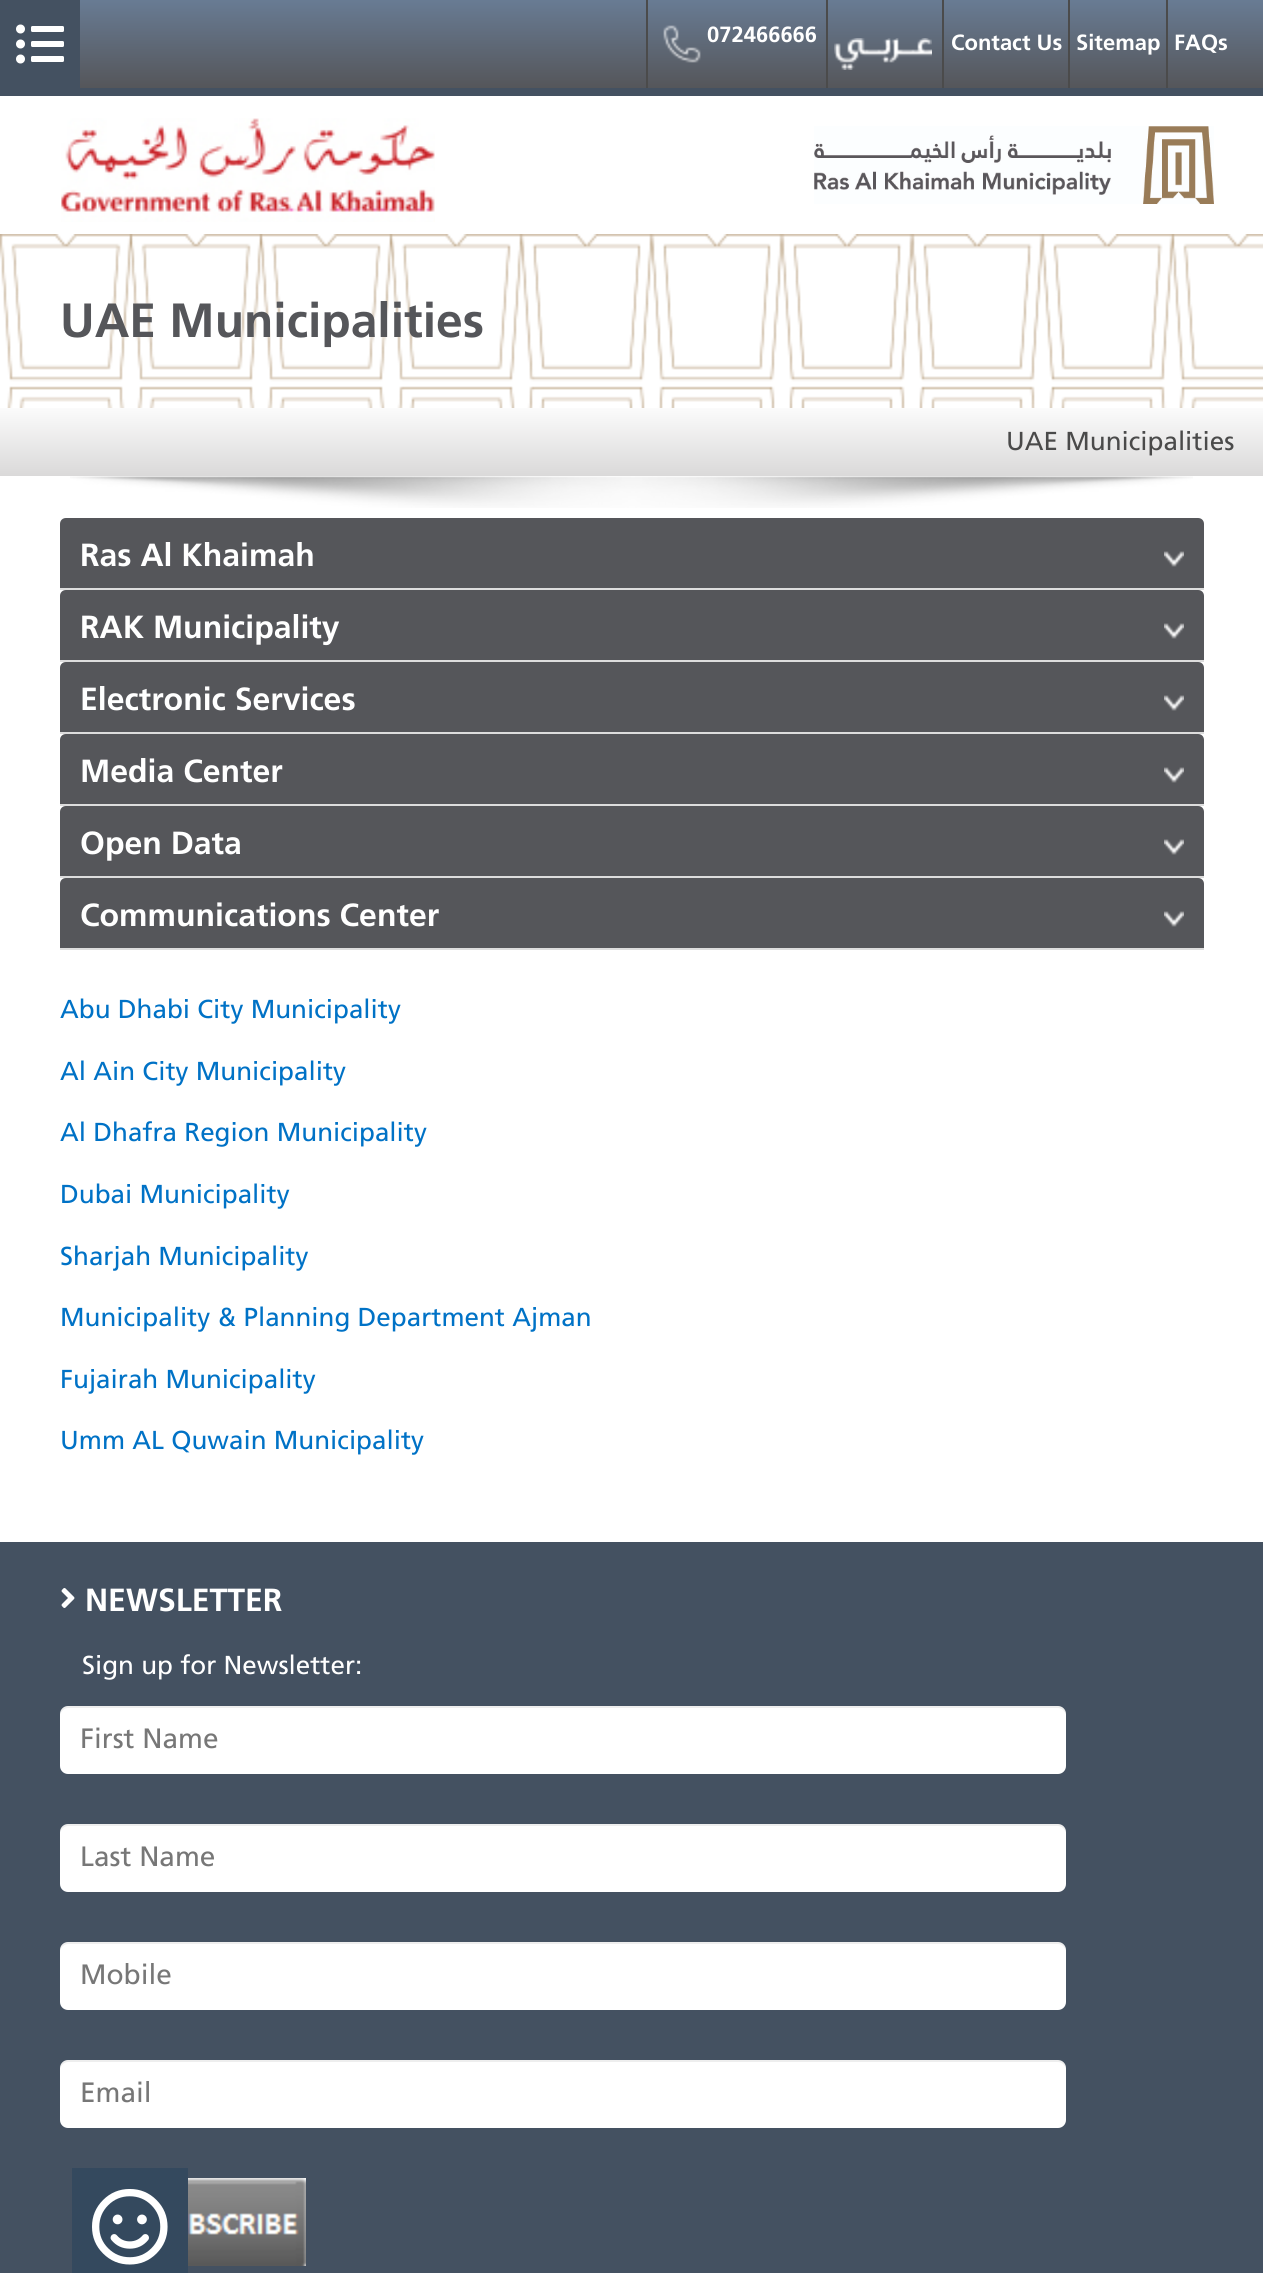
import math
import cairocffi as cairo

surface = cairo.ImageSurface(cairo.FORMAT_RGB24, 1263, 2273)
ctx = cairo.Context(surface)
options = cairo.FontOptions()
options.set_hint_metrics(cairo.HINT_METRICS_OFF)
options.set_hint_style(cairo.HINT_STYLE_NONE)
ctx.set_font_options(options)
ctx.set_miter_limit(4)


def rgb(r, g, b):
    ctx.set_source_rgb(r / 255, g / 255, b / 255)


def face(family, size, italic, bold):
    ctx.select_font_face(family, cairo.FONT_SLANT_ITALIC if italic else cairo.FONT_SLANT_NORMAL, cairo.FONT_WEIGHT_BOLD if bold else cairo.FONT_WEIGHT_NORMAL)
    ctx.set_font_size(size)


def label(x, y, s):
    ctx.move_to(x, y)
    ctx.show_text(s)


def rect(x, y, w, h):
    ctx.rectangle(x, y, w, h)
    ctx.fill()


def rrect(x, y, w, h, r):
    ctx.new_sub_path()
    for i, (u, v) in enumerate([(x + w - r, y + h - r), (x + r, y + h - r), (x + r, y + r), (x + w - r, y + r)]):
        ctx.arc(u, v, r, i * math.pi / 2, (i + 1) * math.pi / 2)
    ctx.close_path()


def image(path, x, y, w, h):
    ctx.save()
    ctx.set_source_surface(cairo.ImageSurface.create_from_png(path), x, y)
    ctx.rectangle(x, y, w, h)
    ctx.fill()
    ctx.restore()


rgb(255, 255, 255)
ctx.paint()
gradient = cairo.LinearGradient(632, 0, 632, 88)
gradient.add_color_stop_rgba(0.01, 0.408, 0.482, 0.576, 1)
gradient.add_color_stop_rgba(1, 0.333, 0.337, 0.353, 1)
ctx.set_source(gradient)
rect(80, 0, 1183, 88)
rgb(68, 81, 97)
rect(0, 88, 1263, 8)
rect(0, 0, 80, 88)
image('image0.png', 16, 24, 48, 40)
rgb(75, 75, 75)
rect(826, 0, 2, 88)
rect(646, 0, 2, 88)
image('image1.png', 663, 25, 38, 38)
face('Frutiger', 22, 0, 1)
rgb(255, 255, 255)
label(707, 42, '072466666')
image('image2.png', 834, 38, 98, 32)
rgb(75, 75, 75)
rect(942, 0, 2, 88)
rgb(255, 255, 255)
label(951, 50, 'Contact Us')
rgb(75, 75, 75)
rect(1068, 0, 2, 88)
rgb(255, 255, 255)
label(1076, 50, 'Sitemap')
rgb(75, 75, 75)
rect(1166, 0, 2, 88)
rgb(255, 255, 255)
label(1174, 50, 'FAQs')
image('image3.png', 61, 118, 374, 104)
image('image4.png', 814, 126, 400, 78)
image('image5.png', 0, 234, 1263, 174)
face('Frutiger', 48, 0, 1)
rgb(85, 86, 90)
label(60, 337, 'UAE Municipalities')
gradient = cairo.LinearGradient(632, 408, 632, 476)
gradient.add_color_stop_rgba(0, 0.984, 0.984, 0.984, 1)
gradient.add_color_stop_rgba(1, 0.855, 0.851, 0.851, 1)
ctx.set_source(gradient)
rect(0, 408, 1263, 68)
face('Frutiger', 26, 0, 0)
rgb(74, 74, 74)
label(1006, 450, 'UAE Municipalities')
image('image6.png', 70, 476, 1123, 32)
rgb(85, 86, 90)
ctx.new_path()
ctx.move_to(66, 518)
ctx.line_to(1198, 518)
ctx.curve_to(1201.5, 518, 1204, 520.5, 1204, 524)
ctx.line_to(1204, 590)
ctx.line_to(60, 590)
ctx.line_to(60, 524)
ctx.curve_to(60, 520.5, 62.5, 518, 66, 518)
ctx.close_path()
ctx.fill()
rgb(221, 221, 221)
rect(60, 588, 1144, 2)
image('image7.png', 1164, 551, 20, 16)
face('Frutiger', 32, 0, 1)
rgb(255, 255, 255)
label(80, 566, 'Ras Al Khaimah')
rgb(85, 86, 90)
ctx.new_path()
ctx.move_to(66, 590)
ctx.line_to(1198, 590)
ctx.curve_to(1201.5, 590, 1204, 592.5, 1204, 596)
ctx.line_to(1204, 662)
ctx.line_to(60, 662)
ctx.line_to(60, 596)
ctx.curve_to(60, 592.5, 62.5, 590, 66, 590)
ctx.close_path()
ctx.fill()
rgb(221, 221, 221)
rect(60, 660, 1144, 2)
image('image7.png', 1164, 623, 20, 16)
rgb(255, 255, 255)
label(80, 638, 'RAK Municipality')
rgb(85, 86, 90)
ctx.new_path()
ctx.move_to(66, 662)
ctx.line_to(1198, 662)
ctx.curve_to(1201.5, 662, 1204, 664.5, 1204, 668)
ctx.line_to(1204, 734)
ctx.line_to(60, 734)
ctx.line_to(60, 668)
ctx.curve_to(60, 664.5, 62.5, 662, 66, 662)
ctx.close_path()
ctx.fill()
rgb(221, 221, 221)
rect(60, 732, 1144, 2)
image('image7.png', 1164, 695, 20, 16)
rgb(255, 255, 255)
label(80, 710, 'Electronic Services')
rgb(85, 86, 90)
ctx.new_path()
ctx.move_to(66, 734)
ctx.line_to(1198, 734)
ctx.curve_to(1201.5, 734, 1204, 736.5, 1204, 740)
ctx.line_to(1204, 806)
ctx.line_to(60, 806)
ctx.line_to(60, 740)
ctx.curve_to(60, 736.5, 62.5, 734, 66, 734)
ctx.close_path()
ctx.fill()
rgb(221, 221, 221)
rect(60, 804, 1144, 2)
image('image7.png', 1164, 767, 20, 16)
rgb(255, 255, 255)
label(80, 782, 'Media Center')
rgb(85, 86, 90)
ctx.new_path()
ctx.move_to(66, 806)
ctx.line_to(1198, 806)
ctx.curve_to(1201.5, 806, 1204, 808.5, 1204, 812)
ctx.line_to(1204, 878)
ctx.line_to(60, 878)
ctx.line_to(60, 812)
ctx.curve_to(60, 808.5, 62.5, 806, 66, 806)
ctx.close_path()
ctx.fill()
rgb(221, 221, 221)
rect(60, 876, 1144, 2)
image('image7.png', 1164, 839, 20, 16)
rgb(255, 255, 255)
label(80, 854, 'Open Data')
rgb(85, 86, 90)
ctx.new_path()
ctx.move_to(66, 878)
ctx.line_to(1198, 878)
ctx.curve_to(1201.5, 878, 1204, 880.5, 1204, 884)
ctx.line_to(1204, 950)
ctx.line_to(60, 950)
ctx.line_to(60, 884)
ctx.curve_to(60, 880.5, 62.5, 878, 66, 878)
ctx.close_path()
ctx.fill()
rgb(221, 221, 221)
rect(60, 948, 1144, 2)
image('image7.png', 1164, 911, 20, 16)
rgb(255, 255, 255)
label(80, 926, 'Communications Center')
face('Frutiger', 26, 0, 0)
rgb(0, 114, 198)
label(60, 1018, 'Abu Dhabi City Municipality')
label(60, 1080, 'Al Ain City Municipality')
label(60, 1141, 'Al Dhafra Region Municipality')
label(60, 1203, 'Dubai Municipality')
label(60, 1265, 'Sharjah Municipality')
label(60, 1326, 'Municipality & Planning Department Ajman')
label(60, 1388, 'Fujairah Municipality')
label(60, 1449, 'Umm AL Quwain Municipality')
rgb(68, 81, 97)
rect(0, 1542, 1263, 731)
image('image8.png', 61, 1588, 14, 20)
face('Frutiger', 32, 0, 1)
rgb(255, 255, 255)
label(85, 1611, 'NEWSLETTER')
face('Frutiger', 26, 0, 0)
label(82, 1674, 'Sign up for Newsletter:')
rrect(60, 1706, 1006, 68, 8)
ctx.fill()
ctx.set_source_rgba(0, 0, 0, 0.07)
ctx.new_path()
ctx.move_to(68, 1708)
ctx.line_to(1058, 1708)
ctx.curve_to(1062, 1708, 1066, 1712, 1066, 1716)
ctx.curve_to(1066, 1711, 1064, 1706, 1058, 1706)
ctx.line_to(68, 1706)
ctx.curve_to(62, 1706, 60, 1711, 60, 1716)
ctx.curve_to(60, 1712, 64, 1708, 68, 1708)
ctx.close_path()
ctx.fill()
face('Frutiger', 28, 0, 0)
rgb(119, 119, 119)
label(80, 1748, 'First Name')
rgb(255, 255, 255)
rrect(60, 1824, 1006, 68, 8)
ctx.fill()
ctx.set_source_rgba(0, 0, 0, 0.07)
ctx.new_path()
ctx.move_to(68, 1826)
ctx.line_to(1058, 1826)
ctx.curve_to(1062, 1826, 1066, 1830, 1066, 1834)
ctx.curve_to(1066, 1829, 1064, 1824, 1058, 1824)
ctx.line_to(68, 1824)
ctx.curve_to(62, 1824, 60, 1829, 60, 1834)
ctx.curve_to(60, 1830, 64, 1826, 68, 1826)
ctx.close_path()
ctx.fill()
rgb(119, 119, 119)
label(80, 1866, 'Last Name')
rgb(255, 255, 255)
rrect(60, 1942, 1006, 68, 8)
ctx.fill()
ctx.set_source_rgba(0, 0, 0, 0.07)
ctx.new_path()
ctx.move_to(68, 1944)
ctx.line_to(1058, 1944)
ctx.curve_to(1062, 1944, 1066, 1948, 1066, 1952)
ctx.curve_to(1066, 1947, 1064, 1942, 1058, 1942)
ctx.line_to(68, 1942)
ctx.curve_to(62, 1942, 60, 1947, 60, 1952)
ctx.curve_to(60, 1948, 64, 1944, 68, 1944)
ctx.close_path()
ctx.fill()
rgb(119, 119, 119)
label(80, 1984, 'Mobile')
rgb(255, 255, 255)
rrect(60, 2060, 1006, 68, 8)
ctx.fill()
ctx.set_source_rgba(0, 0, 0, 0.07)
ctx.new_path()
ctx.move_to(68, 2062)
ctx.line_to(1058, 2062)
ctx.curve_to(1062, 2062, 1066, 2066, 1066, 2070)
ctx.curve_to(1066, 2065, 1064, 2060, 1058, 2060)
ctx.line_to(68, 2060)
ctx.curve_to(62, 2060, 60, 2065, 60, 2070)
ctx.curve_to(60, 2066, 64, 2062, 68, 2062)
ctx.close_path()
ctx.fill()
rgb(119, 119, 119)
label(80, 2102, 'Email')
image('image9.png', 188, 2178, 118, 88)
rgb(52, 73, 94)
rect(72, 2168, 116, 105)
image('image10.png', 92, 2189, 76, 76)
surface.write_to_png('render.png')
